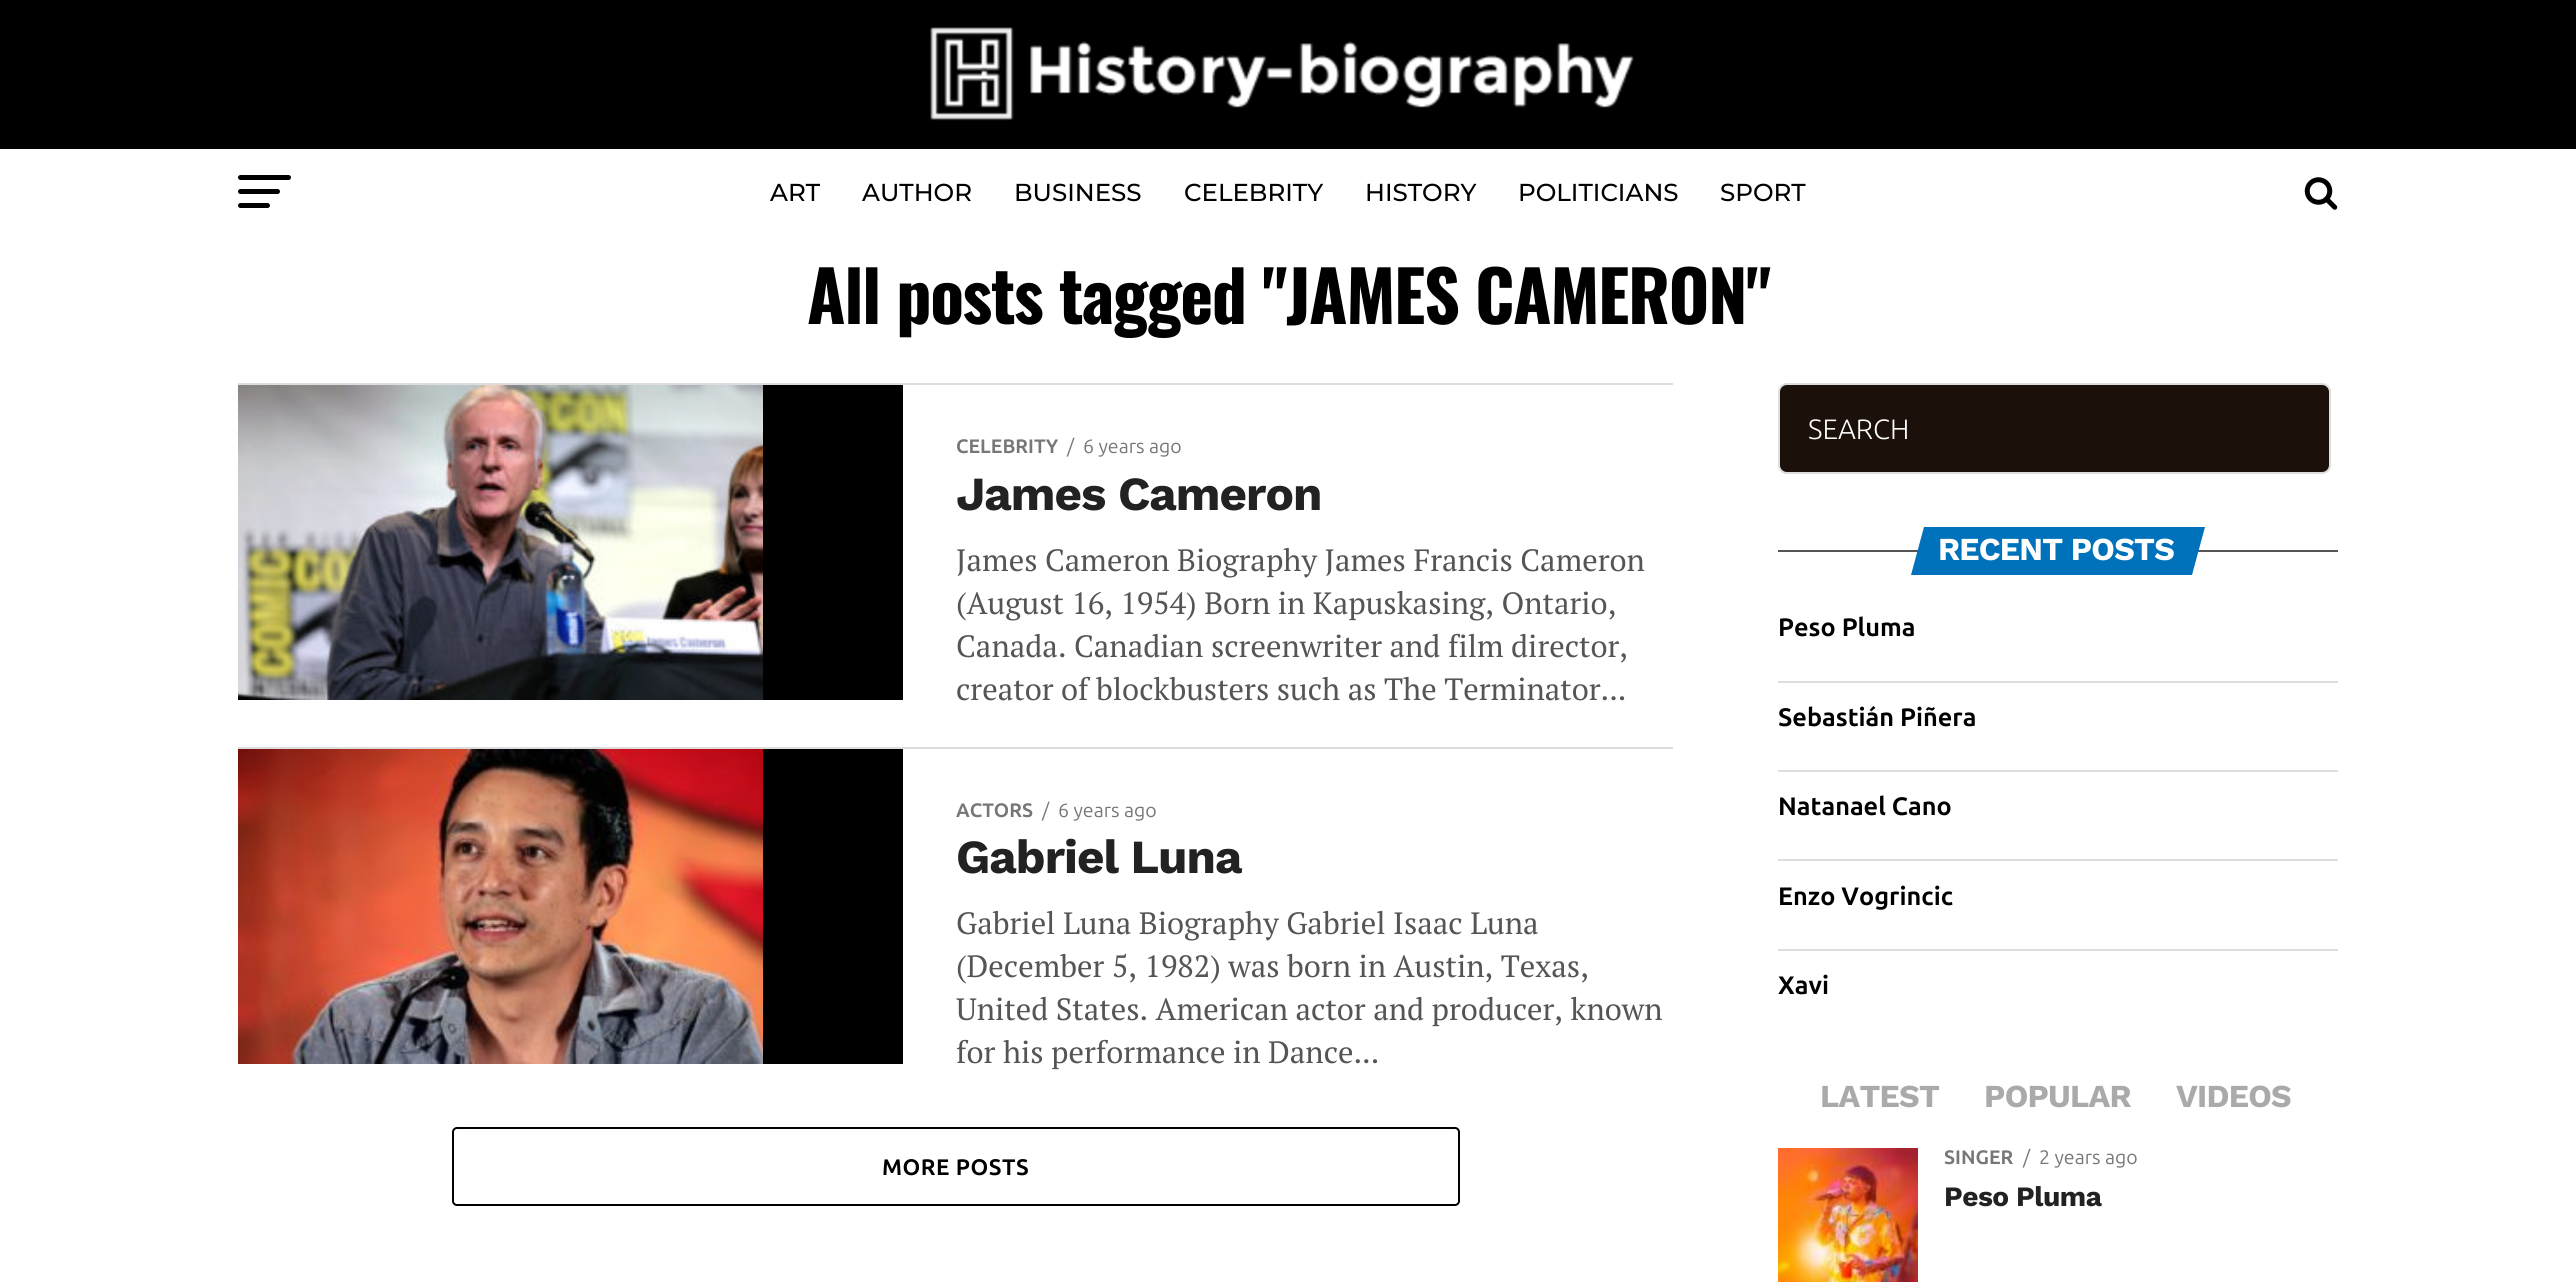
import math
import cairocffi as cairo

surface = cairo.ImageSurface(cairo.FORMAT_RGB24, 2576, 1282)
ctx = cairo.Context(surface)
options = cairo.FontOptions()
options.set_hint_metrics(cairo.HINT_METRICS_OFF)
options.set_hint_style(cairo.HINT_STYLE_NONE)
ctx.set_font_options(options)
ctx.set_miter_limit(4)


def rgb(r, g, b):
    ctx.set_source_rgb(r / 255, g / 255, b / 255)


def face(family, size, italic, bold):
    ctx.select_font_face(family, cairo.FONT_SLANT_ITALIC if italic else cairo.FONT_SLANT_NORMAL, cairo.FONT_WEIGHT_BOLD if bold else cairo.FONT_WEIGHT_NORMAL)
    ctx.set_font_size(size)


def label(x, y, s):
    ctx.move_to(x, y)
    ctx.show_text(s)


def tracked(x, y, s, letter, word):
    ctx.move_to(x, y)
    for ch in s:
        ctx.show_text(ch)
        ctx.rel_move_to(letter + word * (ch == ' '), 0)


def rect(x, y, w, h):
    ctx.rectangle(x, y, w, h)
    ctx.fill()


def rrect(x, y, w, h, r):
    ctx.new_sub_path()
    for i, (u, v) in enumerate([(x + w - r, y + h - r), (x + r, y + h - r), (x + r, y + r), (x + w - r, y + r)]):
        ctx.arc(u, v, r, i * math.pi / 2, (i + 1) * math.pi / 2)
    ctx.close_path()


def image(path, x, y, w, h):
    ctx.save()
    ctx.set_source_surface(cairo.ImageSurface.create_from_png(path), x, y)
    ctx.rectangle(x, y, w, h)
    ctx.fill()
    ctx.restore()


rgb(255, 255, 255)
ctx.paint()
rgb(0, 0, 0)
rect(0, 0, 2576, 149)
image('image0.png', 930, 27, 704, 94)
rrect(238, 175, 53, 5, 2.5)
ctx.fill()
rrect(238, 189, 42, 5, 2.5)
ctx.fill()
rrect(238, 203, 32, 5, 2.5)
ctx.fill()
face('Montserrat Medium', 24.5, 0, 0)
label(770, 201, 'ART')
label(862, 201, 'AUTHOR')
label(1014, 201, 'BUSINESS')
label(1184, 201, 'CELEBRITY')
label(1365, 201, 'HISTORY')
label(1518, 201, 'POLITICIANS')
label(1720, 201, 'SPORT')
image('image1.png', 2304, 177, 34, 33)
face('Oswald', 70, 0, 1)
tracked(807, 324, 'All posts tagged "JAMES CAMERON"', -1.4, 0)
rgb(221, 221, 221)
rect(238, 383, 1435, 2)
rgb(0, 0, 0)
rect(763, 385, 140, 315)
image('image2.png', 238, 385, 525, 315)
face('Ubuntu', 19.5, 0, 1)
rgb(119, 119, 119)
label(956, 453, 'CELEBRITY')
face('Ubuntu', 19.5, 0, 0)
label(1067, 453, '/')
label(1083, 453, '6 years ago')
face('Work Sans', 47.5, 0, 1)
rgb(34, 34, 34)
tracked(956, 510, 'James Cameron', -1, 0)
face('PT Serif', 30.8, 0, 0)
rgb(85, 85, 85)
label(956, 571, 'James Cameron Biography James Francis Cameron')
label(956, 614, '(August 16, 1954) Born in Kapuskasing, Ontario,')
label(956, 657, 'Canada. Canadian screenwriter and film director,')
label(956, 700, 'creator of blockbusters such as The Terminator...')
rgb(221, 221, 221)
rect(238, 747, 1435, 2)
rgb(0, 0, 0)
rect(763, 749, 140, 315)
image('image3.png', 238, 749, 525, 315)
face('Ubuntu', 19.5, 0, 1)
rgb(119, 119, 119)
label(956, 817, 'ACTORS')
face('Ubuntu', 19.5, 0, 0)
label(1042, 817, '/')
label(1058, 817, '6 years ago')
face('Work Sans', 47.5, 0, 1)
rgb(34, 34, 34)
tracked(956, 873, 'Gabriel Luna', -1, 0)
face('PT Serif', 30.8, 0, 0)
rgb(85, 85, 85)
label(956, 934, 'Gabriel Luna Biography Gabriel Isaac Luna')
label(956, 977, '(December 5, 1982) was born in Austin, Texas,')
label(956, 1020, 'United States. American actor and producer, known')
label(956, 1063, 'for his performance in Dance...')
rrect(453, 1128, 1006, 77, 4)
rgb(0, 0, 0)
ctx.stroke()
face('Ubuntu', 22.5, 0, 1)
tracked(882, 1175, 'MORE POSTS', 0.5, 0)
rgb(28, 17, 10)
rrect(1779, 384, 551, 89, 8)
ctx.fill_preserve()
rgb(221, 221, 221)
ctx.stroke()
face('Ubuntu Light', 28, 0, 0)
rgb(255, 255, 255)
label(1808, 439, 'SEARCH')
rgb(85, 85, 85)
rect(1778, 550, 560, 2)
rgb(0, 114, 187)
ctx.new_path()
ctx.move_to(1924, 527)
ctx.line_to(2205, 527)
ctx.line_to(2192, 575)
ctx.line_to(1911, 575)
ctx.close_path()
ctx.fill()
face('Work Sans', 32, 0, 1)
rgb(255, 255, 255)
tracked(1938, 560, 'RECENT POSTS', -0.75, 0)
face('Ubuntu', 25.25, 0, 1)
rgb(0, 0, 0)
label(1778, 636, 'Peso Pluma')
rgb(221, 221, 221)
rect(1778, 681, 560, 2)
rgb(0, 0, 0)
label(1778, 726, 'Sebastián Piñera')
rgb(221, 221, 221)
rect(1778, 770, 560, 2)
rgb(0, 0, 0)
label(1778, 815, 'Natanael Cano')
rgb(221, 221, 221)
rect(1778, 859, 560, 2)
rgb(0, 0, 0)
label(1778, 905, 'Enzo Vogrincic')
rgb(221, 221, 221)
rect(1778, 949, 560, 2)
rgb(0, 0, 0)
label(1778, 994, 'Xavi')
face('Work Sans', 32, 0, 1)
rgb(170, 170, 170)
tracked(1820, 1107, 'LATEST', -0.75, 0)
tracked(1984, 1107, 'POPULAR', -0.75, 0)
tracked(2176, 1107, 'VIDEOS', -0.75, 0)
image('image4.png', 1778, 1148, 140, 134)
face('Ubuntu', 19.5, 0, 1)
rgb(119, 119, 119)
label(1944, 1164, 'SINGER')
face('Ubuntu', 19.5, 0, 0)
label(2023, 1164, '/')
label(2039, 1164, '2 years ago')
face('Work Sans', 28, 0, 1)
rgb(34, 34, 34)
tracked(1944, 1206, 'Peso Pluma', -0.5, 0)
surface.write_to_png('render.png')
